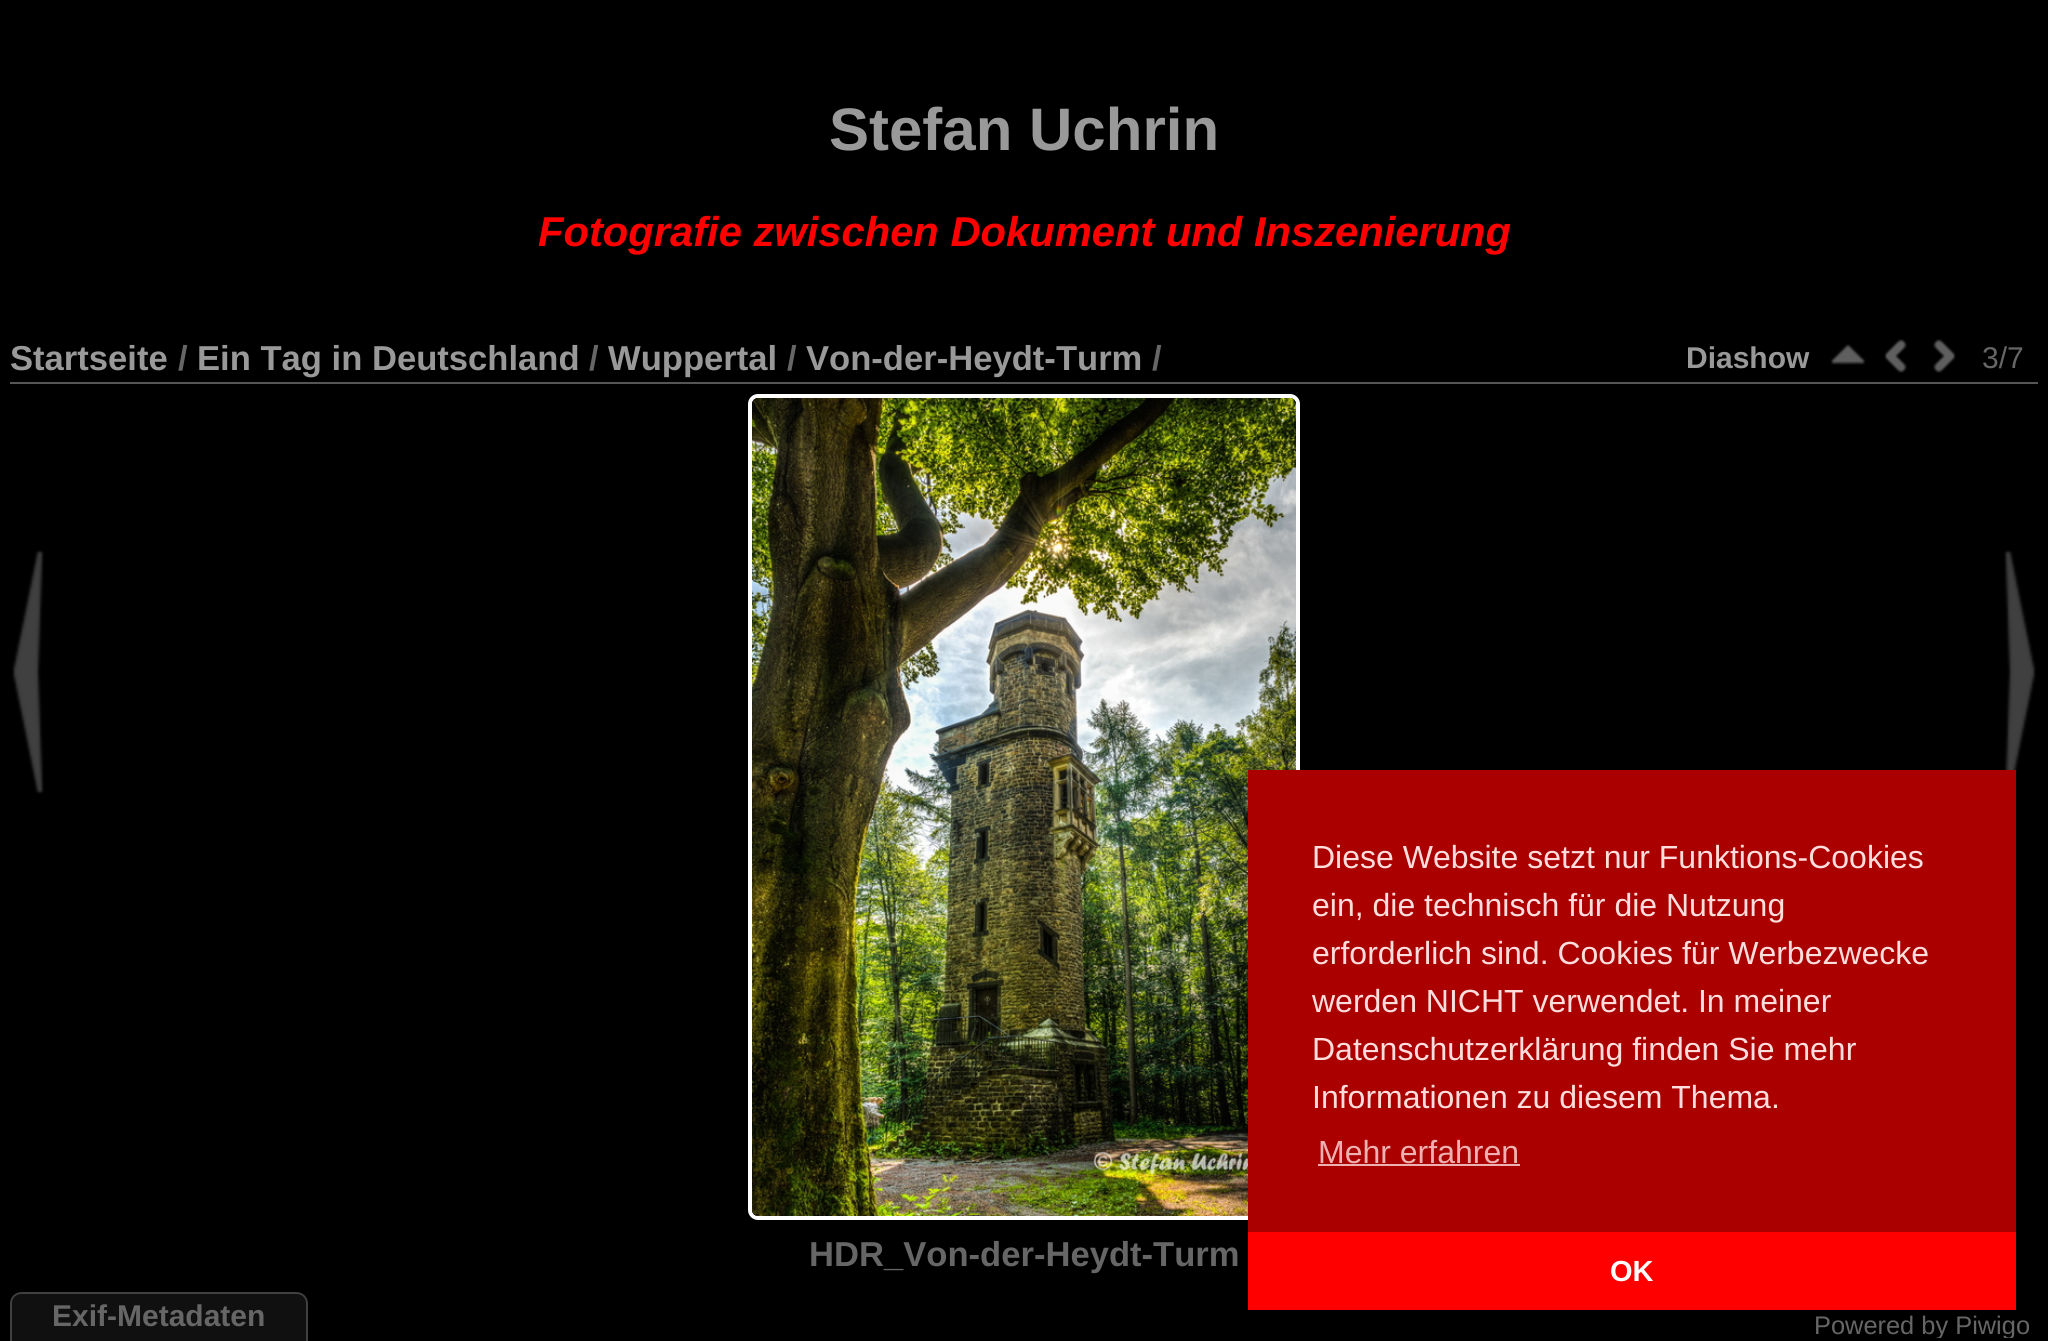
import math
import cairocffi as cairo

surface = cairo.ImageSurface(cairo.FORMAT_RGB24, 2048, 1341)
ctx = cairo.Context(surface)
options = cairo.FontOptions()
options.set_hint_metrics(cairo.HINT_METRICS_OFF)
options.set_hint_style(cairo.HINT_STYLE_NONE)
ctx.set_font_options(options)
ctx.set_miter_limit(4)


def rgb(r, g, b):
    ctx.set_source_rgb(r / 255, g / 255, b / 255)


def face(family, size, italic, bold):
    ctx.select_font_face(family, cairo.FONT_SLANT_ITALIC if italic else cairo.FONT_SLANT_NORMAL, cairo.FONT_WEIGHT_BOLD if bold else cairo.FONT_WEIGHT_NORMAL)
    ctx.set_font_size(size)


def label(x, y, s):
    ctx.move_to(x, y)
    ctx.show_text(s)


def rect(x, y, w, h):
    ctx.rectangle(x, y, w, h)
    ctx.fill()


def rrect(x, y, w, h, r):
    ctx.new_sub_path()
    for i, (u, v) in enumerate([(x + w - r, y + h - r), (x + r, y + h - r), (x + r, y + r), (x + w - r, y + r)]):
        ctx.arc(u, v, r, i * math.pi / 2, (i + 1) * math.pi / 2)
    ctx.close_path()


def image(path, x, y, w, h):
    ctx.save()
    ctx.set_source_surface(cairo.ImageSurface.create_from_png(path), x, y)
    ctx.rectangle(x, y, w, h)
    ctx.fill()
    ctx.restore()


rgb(0, 0, 0)
ctx.paint()
face('Liberation Sans', 60, 0, 1)
rgb(153, 153, 153)
label(829, 150, 'Stefan Uchrin')
face('Liberation Sans', 41.7, 1, 1)
rgb(255, 0, 0)
label(538, 246, 'Fotografie zwischen Dokument und Inszenierung')
rgb(85, 85, 85)
rect(10, 382, 2028, 2)
face('Liberation Sans', 34.6, 0, 1)
rgb(153, 153, 153)
label(10, 370, 'Startseite')
rgb(102, 102, 102)
label(178, 370, '/')
rgb(153, 153, 153)
label(197, 370, 'Ein Tag in Deutschland')
rgb(102, 102, 102)
label(589, 370, '/')
rgb(153, 153, 153)
label(608, 370, 'Wuppertal')
rgb(102, 102, 102)
label(787, 370, '/')
rgb(153, 153, 153)
label(806, 370, 'Von-der-Heydt-Turm')
rgb(102, 102, 102)
label(1152, 370, '/')
face('Liberation Sans', 30, 0, 1)
rgb(153, 153, 153)
label(1686, 368, 'Diashow')
image('image0.png', 1830, 344, 36, 21)
image('image1.png', 1884, 339, 23, 34)
image('image2.png', 1933, 339, 23, 34)
face('Liberation Sans', 30, 0, 0)
rgb(102, 102, 102)
label(1982, 368, '3/7')
image('image3.png', 12, 550, 32, 244)
rrect(750, 396, 548, 822, 8)
rgb(255, 255, 255)
ctx.set_line_width(4)
ctx.stroke()
image('image4.png', 752, 398, 544, 818)
image('image5.png', 2004, 550, 32, 229)
face('Liberation Sans', 34.6, 0, 1)
rgb(102, 102, 102)
label(809, 1266, 'HDR_Von-der-Heydt-Turm')
rgb(16, 16, 16)
ctx.new_path()
ctx.move_to(22, 1294)
ctx.line_to(296, 1294)
ctx.curve_to(301.5, 1294, 306, 1298.5, 306, 1304)
ctx.line_to(306, 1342)
ctx.line_to(12, 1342)
ctx.line_to(12, 1304)
ctx.curve_to(12, 1298.5, 16.5, 1294, 22, 1294)
ctx.close_path()
ctx.fill()
rgb(64, 64, 64)
ctx.set_fill_rule(cairo.FILL_RULE_EVEN_ODD)
ctx.new_path()
ctx.move_to(22, 1292)
ctx.line_to(296, 1292)
ctx.curve_to(303, 1292, 308, 1297, 308, 1304)
ctx.line_to(308, 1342)
ctx.line_to(10, 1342)
ctx.line_to(10, 1304)
ctx.curve_to(10, 1297, 15, 1292, 22, 1292)
ctx.close_path()
ctx.move_to(22, 1294)
ctx.line_to(296, 1294)
ctx.curve_to(302, 1294, 306, 1298, 306, 1304)
ctx.line_to(306, 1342)
ctx.line_to(12, 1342)
ctx.line_to(12, 1304)
ctx.curve_to(12, 1298, 16, 1294, 22, 1294)
ctx.close_path()
ctx.fill()
face('Liberation Sans', 30, 0, 1)
rgb(102, 102, 102)
label(52, 1326, 'Exif-Metadaten')
ctx.save()
ctx.set_fill_rule(cairo.FILL_RULE_WINDING)
ctx.rectangle(1814, 1314, 216, 24)
ctx.clip()
face('Liberation Sans', 25.4, 0, 0)
label(1814, 1334, 'Powered by Piwigo')
ctx.restore()
rgb(170, 0, 0)
rect(1248, 770, 768, 462)
face('Liberation Sans', 32, 0, 0)
rgb(255, 221, 221)
label(1312, 868, 'Diese Website setzt nur Funktions-Cookies')
label(1312, 916, 'ein, die technisch für die Nutzung')
label(1312, 964, 'erforderlich sind. Cookies für Werbezwecke')
label(1312, 1012, 'werden NICHT verwendet. In meiner')
label(1312, 1060, 'Datenschutzerklärung finden Sie mehr')
label(1312, 1108, 'Informationen zu diesem Thema.')
rgb(238, 177, 177)
label(1318, 1163, 'Mehr erfahren')
rect(1318, 1164, 202, 2)
rgb(255, 0, 0)
rect(1248, 1232, 768, 78)
face('Liberation Sans', 29, 0, 1)
rgb(255, 255, 255)
label(1610, 1281, 'OK')
surface.write_to_png('render.png')
